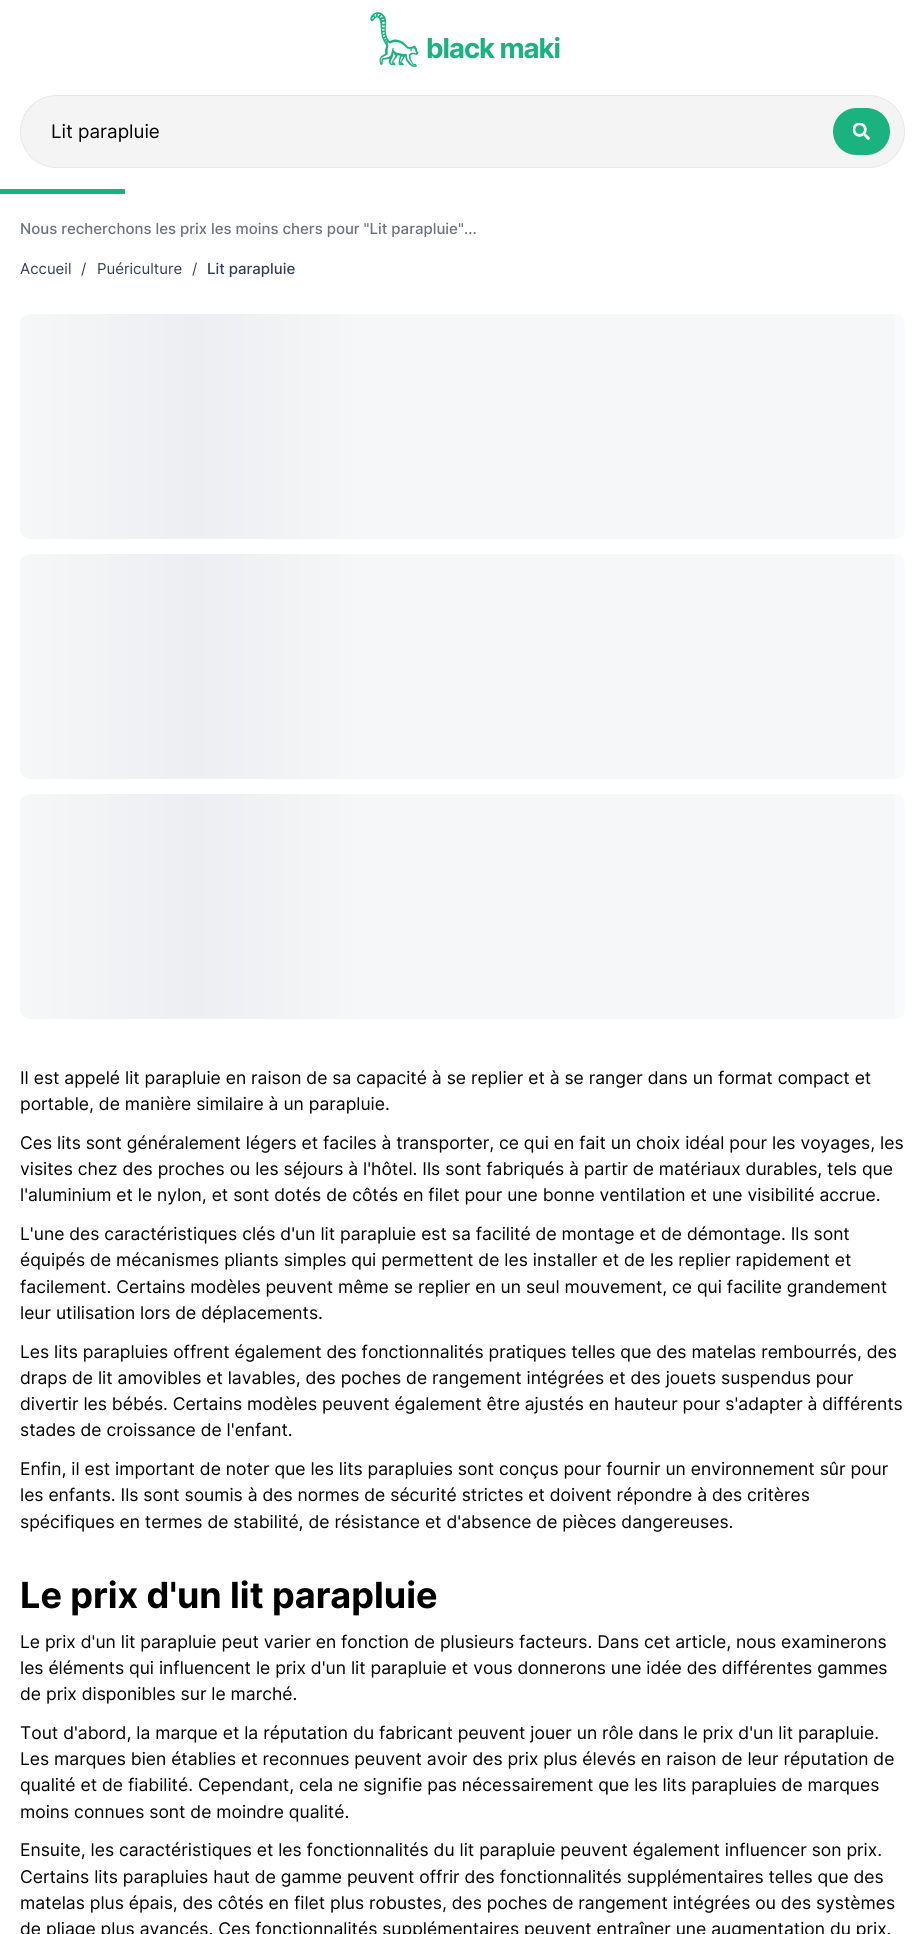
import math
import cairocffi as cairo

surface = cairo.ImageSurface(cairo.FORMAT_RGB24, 924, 1934)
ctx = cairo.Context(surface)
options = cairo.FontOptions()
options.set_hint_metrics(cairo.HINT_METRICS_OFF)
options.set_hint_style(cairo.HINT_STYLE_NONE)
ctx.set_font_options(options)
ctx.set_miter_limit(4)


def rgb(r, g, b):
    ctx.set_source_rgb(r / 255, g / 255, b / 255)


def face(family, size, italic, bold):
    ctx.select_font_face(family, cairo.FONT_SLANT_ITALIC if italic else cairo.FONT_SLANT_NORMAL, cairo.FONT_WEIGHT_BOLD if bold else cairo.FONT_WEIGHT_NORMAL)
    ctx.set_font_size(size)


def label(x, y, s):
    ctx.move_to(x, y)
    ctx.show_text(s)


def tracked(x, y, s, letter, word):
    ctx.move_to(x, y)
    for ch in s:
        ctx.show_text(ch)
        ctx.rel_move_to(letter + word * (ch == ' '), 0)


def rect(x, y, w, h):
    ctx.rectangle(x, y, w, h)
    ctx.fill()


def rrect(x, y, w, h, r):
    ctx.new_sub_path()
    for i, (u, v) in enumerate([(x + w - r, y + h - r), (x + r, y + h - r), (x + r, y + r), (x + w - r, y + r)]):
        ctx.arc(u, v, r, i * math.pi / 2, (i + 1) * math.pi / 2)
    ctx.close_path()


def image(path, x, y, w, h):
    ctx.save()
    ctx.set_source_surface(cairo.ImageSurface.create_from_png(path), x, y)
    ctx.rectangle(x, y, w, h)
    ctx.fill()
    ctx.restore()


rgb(255, 255, 255)
ctx.paint()
image('image0.png', 370, 12, 49, 55)
face('Inter', 27.5, 0, 1)
rgb(26, 179, 128)
tracked(426, 58, 'black maki', -1, 0)
rgb(244, 244, 244)
rrect(20.5, 95.5, 884, 72, 36)
ctx.fill_preserve()
rgb(229, 231, 235)
ctx.set_line_width(1)
ctx.stroke()
face('Inter', 18.75, 0, 0)
rgb(0, 0, 0)
label(51, 138, 'Lit parapluie')
rgb(26, 179, 128)
rrect(833, 108, 57, 47, 23.5)
ctx.fill()
image('image1.png', 853, 123, 17, 17)
rect(0, 189, 125, 5)
face('Inter Medium', 15, 0, 0)
rgb(107, 114, 128)
label(20, 234, 'Nous recherchons les prix les moins chers pour "Lit parapluie"...')
face('Inter', 15, 0, 0)
rgb(51, 65, 85)
label(20, 274, 'Accueil')
label(81, 274, '/')
label(97, 274, 'Puériculture')
label(192, 274, '/')
face('Inter Medium', 15, 0, 0)
label(207, 274, 'Lit parapluie')
rgb(249, 250, 251)
rrect(20, 314, 885, 225, 10)
ctx.fill()
gradient = cairo.LinearGradient(20, 426, 895, 426)
gradient.add_color_stop_rgba(0, 0.965, 0.969, 0.973, 1)
gradient.add_color_stop_rgba(0.2, 0.929, 0.933, 0.945, 1)
gradient.add_color_stop_rgba(0.4, 0.965, 0.969, 0.973, 1)
gradient.add_color_stop_rgba(1, 0.965, 0.969, 0.973, 1)
ctx.set_source(gradient)
ctx.new_path()
ctx.move_to(30, 314)
ctx.line_to(895, 314)
ctx.line_to(895, 539)
ctx.line_to(30, 539)
ctx.curve_to(24.5, 539, 20, 534.5, 20, 529)
ctx.line_to(20, 324)
ctx.curve_to(20, 318.5, 24.5, 314, 30, 314)
ctx.close_path()
ctx.fill()
rgb(249, 250, 251)
rrect(20, 554, 885, 225, 10)
ctx.fill()
gradient = cairo.LinearGradient(20, 666, 895, 666)
gradient.add_color_stop_rgba(0, 0.965, 0.969, 0.973, 1)
gradient.add_color_stop_rgba(0.2, 0.929, 0.933, 0.945, 1)
gradient.add_color_stop_rgba(0.4, 0.965, 0.969, 0.973, 1)
gradient.add_color_stop_rgba(1, 0.965, 0.969, 0.973, 1)
ctx.set_source(gradient)
ctx.new_path()
ctx.move_to(30, 554)
ctx.line_to(895, 554)
ctx.line_to(895, 779)
ctx.line_to(30, 779)
ctx.curve_to(24.5, 779, 20, 774.5, 20, 769)
ctx.line_to(20, 564)
ctx.curve_to(20, 558.5, 24.5, 554, 30, 554)
ctx.close_path()
ctx.fill()
rgb(249, 250, 251)
rrect(20, 794, 885, 225, 10)
ctx.fill()
gradient = cairo.LinearGradient(20, 906, 895, 906)
gradient.add_color_stop_rgba(0, 0.965, 0.969, 0.973, 1)
gradient.add_color_stop_rgba(0.2, 0.929, 0.933, 0.945, 1)
gradient.add_color_stop_rgba(0.4, 0.965, 0.969, 0.973, 1)
gradient.add_color_stop_rgba(1, 0.965, 0.969, 0.973, 1)
ctx.set_source(gradient)
ctx.new_path()
ctx.move_to(30, 794)
ctx.line_to(895, 794)
ctx.line_to(895, 1019)
ctx.line_to(30, 1019)
ctx.curve_to(24.5, 1019, 20, 1014.5, 20, 1009)
ctx.line_to(20, 804)
ctx.curve_to(20, 798.5, 24.5, 794, 30, 794)
ctx.close_path()
ctx.fill()
face('Inter', 17.5, 0, 0)
rgb(0, 0, 0)
label(20, 1084, 'Il est appelé lit parapluie en raison de sa capacité à se replier et à se ranger dans un format compact et')
label(20, 1110, 'portable, de manière similaire à un parapluie.')
label(20, 1149, 'Ces lits sont généralement légers et faciles à transporter, ce qui en fait un choix idéal pour les voyages, les')
label(20, 1175, 'visites chez des proches ou les séjours à l\'hôtel. Ils sont fabriqués à partir de matériaux durables, tels que')
label(20, 1201, 'l\'aluminium et le nylon, et sont dotés de côtés en filet pour une bonne ventilation et une visibilité accrue.')
label(20, 1240, 'L\'une des caractéristiques clés d\'un lit parapluie est sa facilité de montage et de démontage. Ils sont')
label(20, 1266, 'équipés de mécanismes pliants simples qui permettent de les installer et de les replier rapidement et')
label(20, 1293, 'facilement. Certains modèles peuvent même se replier en un seul mouvement, ce qui facilite grandement')
label(20, 1319, 'leur utilisation lors de déplacements.')
label(20, 1358, 'Les lits parapluies offrent également des fonctionnalités pratiques telles que des matelas rembourrés, des')
label(20, 1384, 'draps de lit amovibles et lavables, des poches de rangement intégrées et des jouets suspendus pour')
label(20, 1410, 'divertir les bébés. Certains modèles peuvent également être ajustés en hauteur pour s\'adapter à différents')
label(20, 1436, 'stades de croissance de l\'enfant.')
label(20, 1475, 'Enfin, il est important de noter que les lits parapluies sont conçus pour fournir un environnement sûr pour')
label(20, 1501, 'les enfants. Ils sont soumis à des normes de sécurité strictes et doivent répondre à des critères')
label(20, 1528, 'spécifiques en termes de stabilité, de résistance et d\'absence de pièces dangereuses.')
face('Inter', 36, 0, 1)
label(20, 1608, 'Le prix d\'un lit parapluie')
face('Inter', 17.5, 0, 0)
label(20, 1648, 'Le prix d\'un lit parapluie peut varier en fonction de plusieurs facteurs. Dans cet article, nous examinerons')
label(20, 1674, 'les éléments qui influencent le prix d\'un lit parapluie et vous donnerons une idée des différentes gammes')
label(20, 1700, 'de prix disponibles sur le marché.')
label(20, 1739, 'Tout d\'abord, la marque et la réputation du fabricant peuvent jouer un rôle dans le prix d\'un lit parapluie.')
label(20, 1765, 'Les marques bien établies et reconnues peuvent avoir des prix plus élevés en raison de leur réputation de')
label(20, 1791, 'qualité et de fiabilité. Cependant, cela ne signifie pas nécessairement que les lits parapluies de marques')
label(20, 1818, 'moins connues sont de moindre qualité.')
label(20, 1856, 'Ensuite, les caractéristiques et les fonctionnalités du lit parapluie peuvent également influencer son prix.')
label(20, 1883, 'Certains lits parapluies haut de gamme peuvent offrir des fonctionnalités supplémentaires telles que des')
label(20, 1909, 'matelas plus épais, des côtés en filet plus robustes, des poches de rangement intégrées ou des systèmes')
label(20, 1935, 'de pliage plus avancés. Ces fonctionnalités supplémentaires peuvent entraîner une augmentation du prix.')
surface.write_to_png('render.png')
